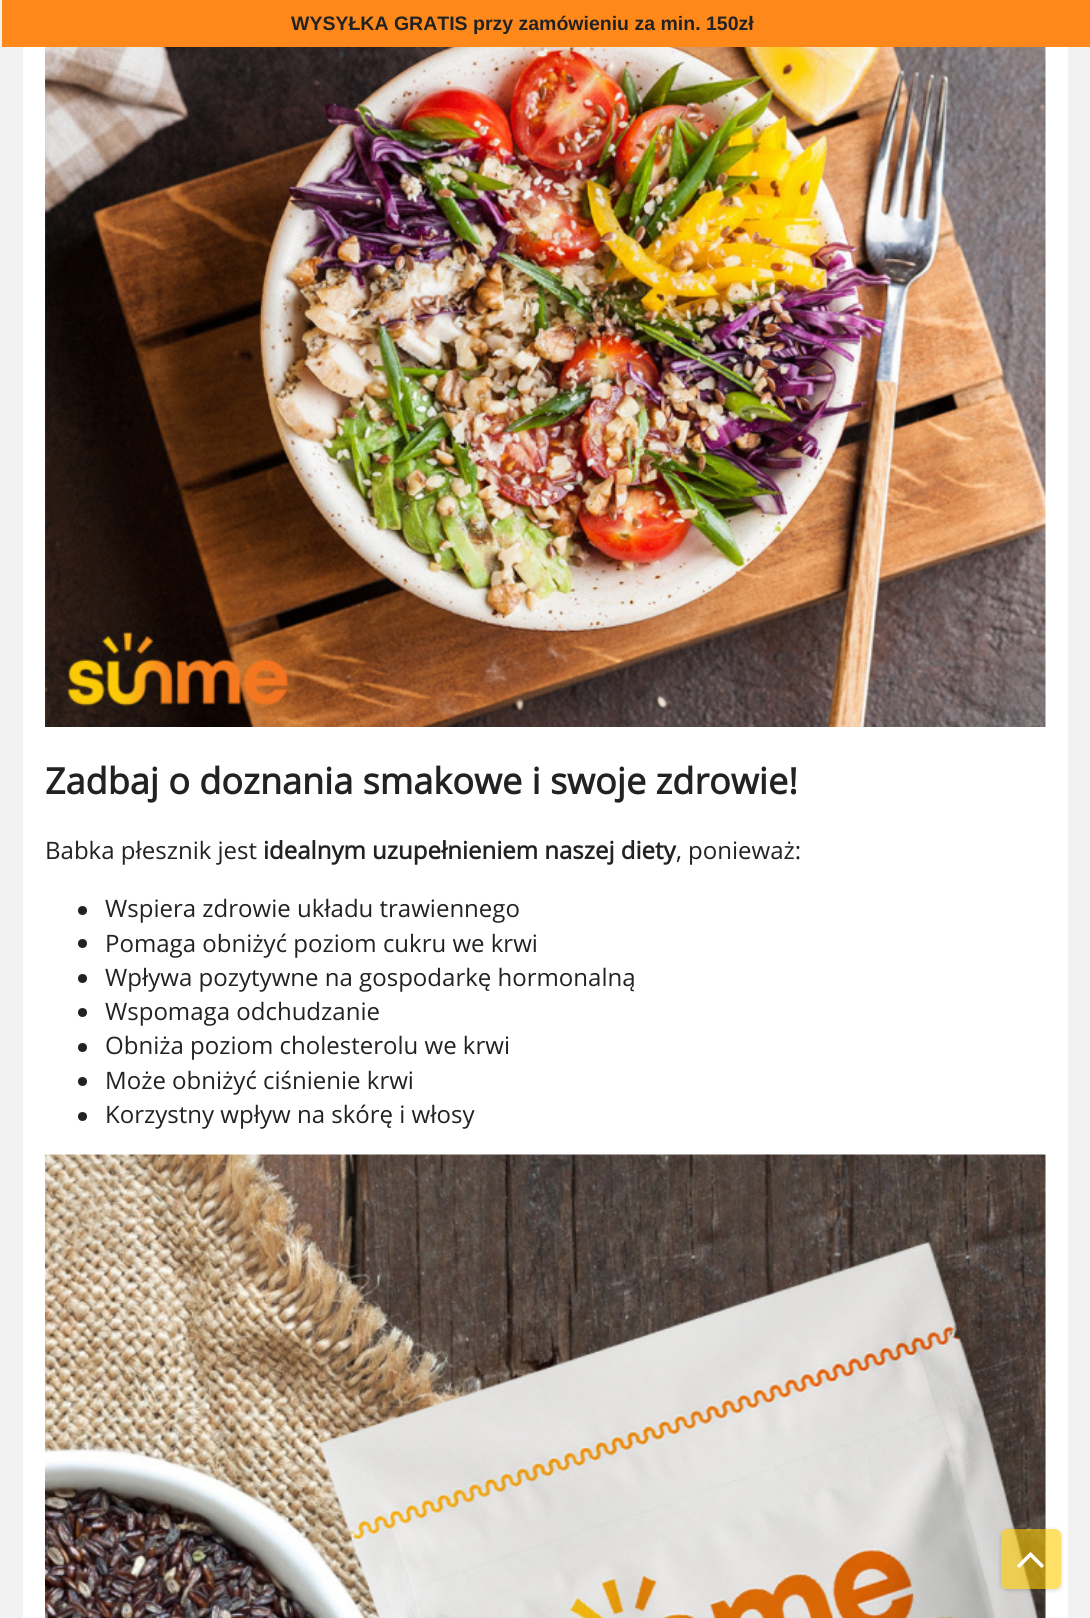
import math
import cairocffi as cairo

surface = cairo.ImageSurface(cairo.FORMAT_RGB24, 1090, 1618)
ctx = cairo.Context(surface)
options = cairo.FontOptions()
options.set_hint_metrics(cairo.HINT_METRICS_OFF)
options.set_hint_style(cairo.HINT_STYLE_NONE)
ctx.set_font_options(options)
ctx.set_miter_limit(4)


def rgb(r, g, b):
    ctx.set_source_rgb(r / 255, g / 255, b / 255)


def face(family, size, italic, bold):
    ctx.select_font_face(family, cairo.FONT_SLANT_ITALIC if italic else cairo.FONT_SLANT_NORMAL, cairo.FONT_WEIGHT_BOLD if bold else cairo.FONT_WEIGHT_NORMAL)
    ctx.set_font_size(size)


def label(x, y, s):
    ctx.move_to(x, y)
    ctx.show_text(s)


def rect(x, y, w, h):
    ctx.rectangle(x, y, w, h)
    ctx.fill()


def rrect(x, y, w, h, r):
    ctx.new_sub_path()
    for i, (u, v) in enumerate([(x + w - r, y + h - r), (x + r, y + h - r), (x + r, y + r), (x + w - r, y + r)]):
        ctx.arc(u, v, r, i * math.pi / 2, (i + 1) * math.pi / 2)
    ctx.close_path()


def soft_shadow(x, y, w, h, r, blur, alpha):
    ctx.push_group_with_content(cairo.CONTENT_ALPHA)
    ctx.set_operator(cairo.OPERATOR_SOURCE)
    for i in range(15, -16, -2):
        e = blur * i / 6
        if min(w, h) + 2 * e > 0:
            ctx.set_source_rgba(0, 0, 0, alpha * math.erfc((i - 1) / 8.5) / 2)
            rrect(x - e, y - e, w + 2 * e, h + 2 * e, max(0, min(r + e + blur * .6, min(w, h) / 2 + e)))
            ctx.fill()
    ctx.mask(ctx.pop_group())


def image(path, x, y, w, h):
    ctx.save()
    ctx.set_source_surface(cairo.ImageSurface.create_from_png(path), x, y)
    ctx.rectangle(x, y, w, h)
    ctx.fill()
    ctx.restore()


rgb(242, 242, 242)
ctx.paint()
rgb(255, 136, 26)
rect(2, 0, 1088, 47)
face('Liberation Sans', 19.5, 0, 1)
rgb(34, 34, 34)
label(291, 30, 'WYSYŁKA GRATIS przy zamówieniu za min. 150zł')
rgb(255, 255, 255)
rect(23, 47, 1045, 1571)
image('image0.png', 45, 47, 1001, 680)
face('Open Sans', 36, 0, 1)
rgb(34, 34, 34)
label(45, 794, 'Zadbaj o doznania smakowe i swoje zdrowie!')
face('Open Sans', 24, 0, 0)
label(45, 859, 'Babka płesznik jest')
face('Open Sans', 24, 0, 1)
label(263, 859, 'idealnym uzupełnieniem naszej diety')
face('Open Sans', 24, 0, 0)
label(676, 859, ', ponieważ:')
ctx.new_path()
ctx.arc(82.5, 910.5, 4.5, 0, 2 * math.pi)
ctx.fill()
label(105, 917, 'Wspiera zdrowie układu trawiennego')
ctx.new_path()
ctx.arc(82.5, 943.5, 4.5, 0, 2 * math.pi)
ctx.fill()
label(105, 952, 'Pomaga obniżyć poziom cukru we krwi')
ctx.new_path()
ctx.arc(82.5, 978.5, 4.5, 0, 2 * math.pi)
ctx.fill()
label(105, 986, 'Wpływa pozytywne na gospodarkę hormonalną')
ctx.new_path()
ctx.arc(82.5, 1012.5, 4.5, 0, 2 * math.pi)
ctx.fill()
label(105, 1020, 'Wspomaga odchudzanie')
ctx.new_path()
ctx.arc(82.5, 1047.5, 4.5, 0, 2 * math.pi)
ctx.fill()
label(105, 1054, 'Obniża poziom cholesterolu we krwi')
ctx.new_path()
ctx.arc(82.5, 1081.5, 4.5, 0, 2 * math.pi)
ctx.fill()
label(105, 1089, 'Może obniżyć ciśnienie krwi')
ctx.new_path()
ctx.arc(82.5, 1116.5, 4.5, 0, 2 * math.pi)
ctx.fill()
label(105, 1123, 'Korzystny wpływ na skórę i włosy')
image('image1.png', 45, 1154, 1001, 464)
ctx.save()
ctx.set_fill_rule(cairo.FILL_RULE_EVEN_ODD)
ctx.new_path()
ctx.move_to(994, 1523)
ctx.line_to(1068, 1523)
ctx.line_to(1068, 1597)
ctx.line_to(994, 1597)
ctx.close_path()
ctx.move_to(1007, 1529)
ctx.line_to(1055, 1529)
ctx.curve_to(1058.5, 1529, 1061, 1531.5, 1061, 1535)
ctx.line_to(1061, 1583)
ctx.curve_to(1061, 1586.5, 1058.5, 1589, 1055, 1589)
ctx.line_to(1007, 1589)
ctx.curve_to(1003.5, 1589, 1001, 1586.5, 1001, 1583)
ctx.line_to(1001, 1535)
ctx.curve_to(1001, 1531.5, 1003.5, 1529, 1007, 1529)
ctx.close_path()
ctx.clip()
rgb(0, 0, 0)
soft_shadow(1001, 1530, 60, 60, 6, 2, 0.2)
ctx.restore()
ctx.set_source_rgba(1, 0.8, 0.008, 0.6)
rrect(1001, 1529, 60, 60, 6)
ctx.fill()
image('image2.png', 1017, 1552, 27, 16)
surface.write_to_png('render.png')
